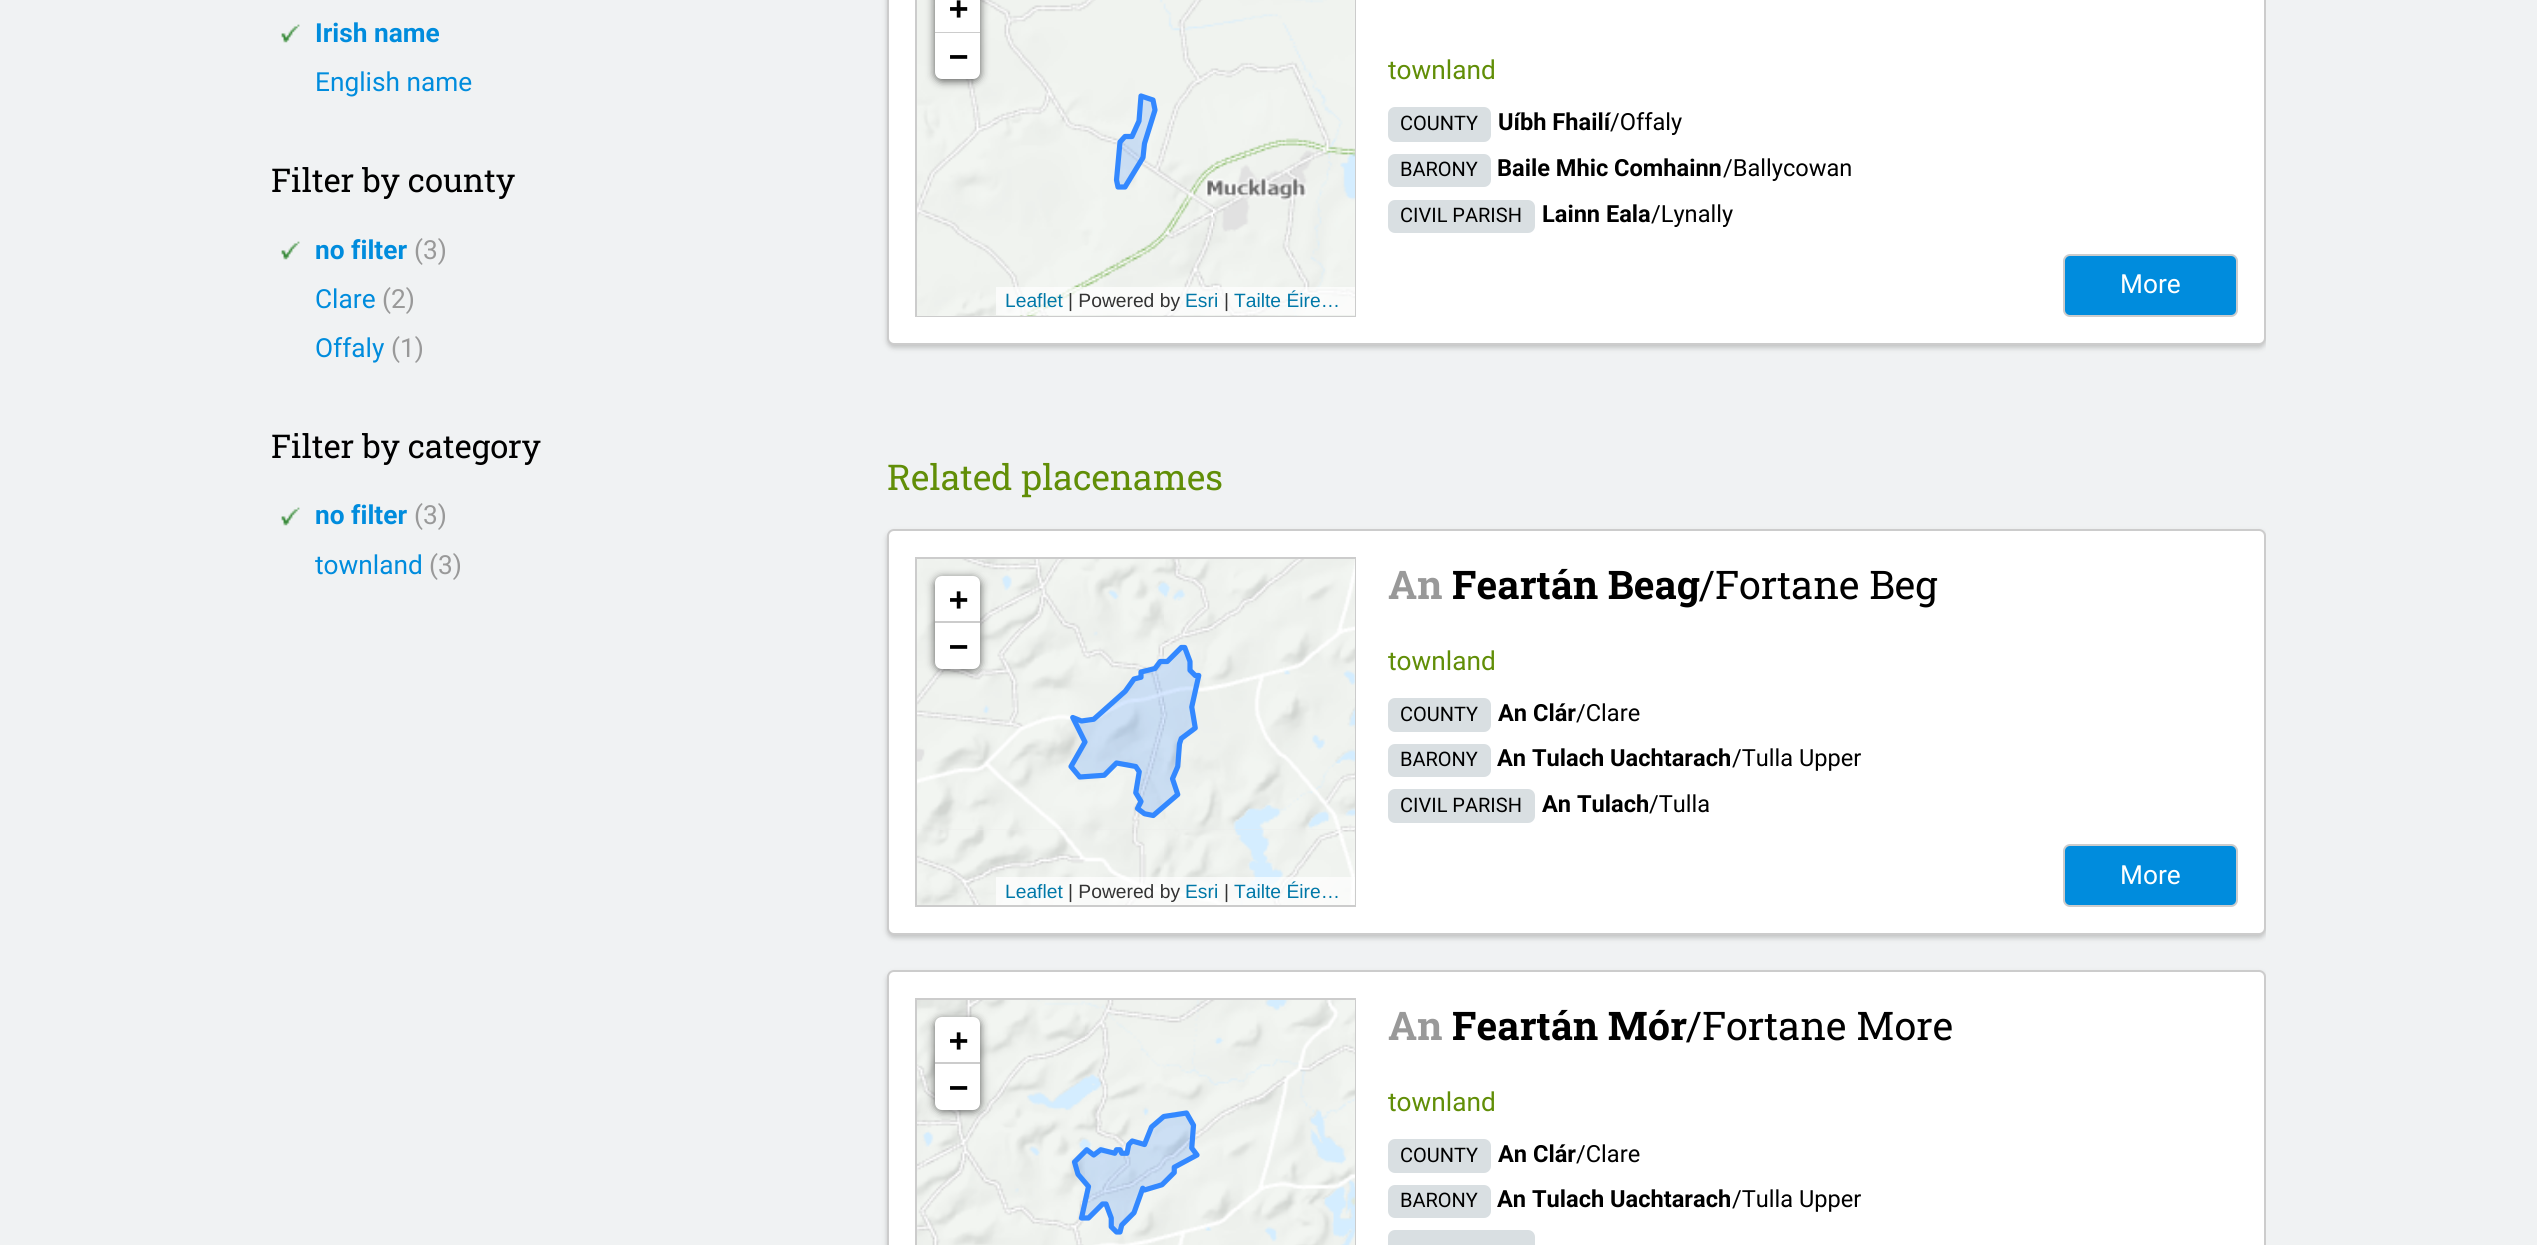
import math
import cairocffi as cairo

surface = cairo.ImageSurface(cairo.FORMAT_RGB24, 2537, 1245)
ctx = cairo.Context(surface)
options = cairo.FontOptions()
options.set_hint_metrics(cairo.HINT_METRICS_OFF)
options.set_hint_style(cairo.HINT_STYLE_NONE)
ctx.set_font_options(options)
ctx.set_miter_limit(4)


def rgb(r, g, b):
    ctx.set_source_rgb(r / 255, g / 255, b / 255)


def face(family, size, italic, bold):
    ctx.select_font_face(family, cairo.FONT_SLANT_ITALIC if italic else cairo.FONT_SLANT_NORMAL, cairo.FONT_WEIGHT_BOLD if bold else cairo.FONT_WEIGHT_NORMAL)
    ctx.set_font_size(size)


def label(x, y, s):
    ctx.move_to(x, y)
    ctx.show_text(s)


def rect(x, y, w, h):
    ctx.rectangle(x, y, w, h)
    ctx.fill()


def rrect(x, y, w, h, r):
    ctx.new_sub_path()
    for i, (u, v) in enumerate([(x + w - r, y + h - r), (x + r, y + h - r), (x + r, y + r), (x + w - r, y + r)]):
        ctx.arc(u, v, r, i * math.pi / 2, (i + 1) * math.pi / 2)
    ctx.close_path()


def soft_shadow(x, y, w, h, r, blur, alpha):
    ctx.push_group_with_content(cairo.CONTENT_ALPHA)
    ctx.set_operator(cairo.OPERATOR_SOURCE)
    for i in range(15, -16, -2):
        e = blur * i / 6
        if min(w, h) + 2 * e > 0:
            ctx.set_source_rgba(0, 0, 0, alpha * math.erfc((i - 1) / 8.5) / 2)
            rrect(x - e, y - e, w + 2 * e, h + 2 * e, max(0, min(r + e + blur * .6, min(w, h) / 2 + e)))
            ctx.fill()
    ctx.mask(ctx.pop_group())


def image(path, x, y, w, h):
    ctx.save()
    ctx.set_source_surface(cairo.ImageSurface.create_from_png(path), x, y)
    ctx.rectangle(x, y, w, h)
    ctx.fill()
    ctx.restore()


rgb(240, 242, 243)
ctx.paint()
image('image0.png', 281, 24, 19, 19)
face('Roboto', 26.25, 0, 1)
rgb(0, 140, 221)
label(315, 42, 'Irish name')
face('Roboto', 26.25, 0, 0)
label(315, 91, 'English name')
face('Roboto Slab', 32.75, 0, 0)
rgb(0, 0, 0)
label(271, 192, 'Filter by county')
image('image0.png', 281, 241, 19, 19)
face('Roboto', 26.25, 0, 1)
rgb(0, 140, 221)
label(315, 259, 'no filter')
face('Roboto', 26.25, 0, 0)
rgb(153, 153, 153)
label(414, 259, '(3)')
rgb(0, 140, 221)
label(315, 308, 'Clare')
rgb(153, 153, 153)
label(382, 308, '(2)')
rgb(0, 140, 221)
label(315, 357, 'Offaly')
rgb(153, 153, 153)
label(391, 357, '(1)')
face('Roboto Slab', 32.75, 0, 0)
rgb(0, 0, 0)
label(271, 458, 'Filter by category')
image('image0.png', 281, 507, 19, 19)
face('Roboto', 26.25, 0, 1)
rgb(0, 140, 221)
label(315, 524, 'no filter')
face('Roboto', 26.25, 0, 0)
rgb(153, 153, 153)
label(414, 524, '(3)')
rgb(0, 140, 221)
label(315, 574, 'townland')
rgb(153, 153, 153)
label(429, 574, '(3)')
ctx.save()
ctx.rectangle(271, 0, 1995, 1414)
ctx.clip()
rgb(150, 150, 150)
soft_shadow(887, -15, 1379, 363, 7, 2.5, 0.5)
ctx.restore()
rgb(255, 255, 255)
rrect(888, -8, 1377, 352, 6)
ctx.fill_preserve()
rgb(204, 204, 204)
ctx.stroke()
ctx.rectangle(916, -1, 439, 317)
ctx.stroke()
image('image1.png', 917, 0, 296, 316)
image('image2.png', 1213, 0, 142, 316)
ctx.set_source_rgba(0.2, 0.533, 1, 0.2)
ctx.set_fill_rule(cairo.FILL_RULE_EVEN_ODD)
ctx.new_path()
ctx.move_to(1118, 187)
ctx.line_to(1125, 187)
ctx.line_to(1143, 158)
ctx.line_to(1144, 144)
ctx.line_to(1155, 110)
ctx.line_to(1153, 100)
ctx.line_to(1141, 96)
ctx.line_to(1139, 121)
ctx.line_to(1132, 136)
ctx.line_to(1125, 136)
ctx.line_to(1120, 142)
ctx.line_to(1116, 180)
ctx.close_path()
ctx.fill()
ctx.new_path()
ctx.move_to(1118, 187)
ctx.line_to(1125, 187)
ctx.line_to(1143, 157.5)
ctx.line_to(1144.5, 143.5)
ctx.line_to(1155, 110)
ctx.line_to(1153, 100)
ctx.line_to(1141, 96)
ctx.line_to(1139, 121)
ctx.line_to(1132, 136.5)
ctx.line_to(1125, 136.5)
ctx.line_to(1120, 142)
ctx.line_to(1116.5, 180)
ctx.close_path()
rgb(51, 136, 255)
ctx.set_line_width(5.2)
ctx.set_line_cap(cairo.LINE_CAP_ROUND)
ctx.set_line_join(cairo.LINE_JOIN_ROUND)
ctx.stroke()
rgb(0, 0, 0)
soft_shadow(935, -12, 45, 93, 7, 4.5, 0.65)
rgb(255, 255, 255)
rect(935, 0, 45, 32)
rgb(204, 204, 204)
rect(935, 32, 45, 1)
face('DejaVu Sans Mono', 32, 0, 1)
rgb(0, 0, 0)
label(949, 19, '+')
rgb(255, 255, 255)
ctx.new_path()
ctx.move_to(935, 33)
ctx.line_to(980, 33)
ctx.line_to(980, 72)
ctx.curve_to(980, 76, 977, 79, 973, 79)
ctx.line_to(942, 79)
ctx.curve_to(938, 79, 935, 76, 935, 72)
ctx.close_path()
ctx.fill()
rgb(0, 0, 0)
label(949, 67, '−')
ctx.set_source_rgba(1, 1, 1, 0.7)
rect(996, 287, 359, 28)
face('Liberation Sans', 19.25, 0, 0)
rgb(0, 120, 168)
label(1005, 307, 'Leaflet')
rgb(51, 51, 51)
label(1068, 307, '| Powered by')
rgb(0, 120, 168)
label(1185, 307, 'Esri')
rgb(51, 51, 51)
label(1224, 307, '|')
rgb(0, 120, 168)
label(1234, 307, 'Tailte Éire…')
face('Roboto', 26.25, 0, 0)
rgb(97, 142, 7)
label(1388, 79, 'townland')
rgb(217, 223, 226)
rrect(1388, 107, 103, 35, 7)
ctx.fill()
face('Roboto', 20, 0, 0)
rgb(0, 0, 0)
label(1400, 130, 'COUNTY')
face('Roboto', 23.6, 0, 1)
label(1498, 130, 'Uíbh Fhailí')
face('Roboto', 23.6, 0, 0)
label(1610, 130, '/Offaly')
rgb(217, 223, 226)
rrect(1388, 154, 103, 33, 7)
ctx.fill()
face('Roboto', 20, 0, 0)
rgb(0, 0, 0)
label(1400, 176, 'BARONY')
face('Roboto', 23.6, 0, 1)
label(1497, 176, 'Baile Mhic Comhainn')
face('Roboto', 23.6, 0, 0)
label(1723, 176, '/Ballycowan')
rgb(217, 223, 226)
rrect(1388, 200, 147, 33, 7)
ctx.fill()
face('Roboto', 20, 0, 0)
rgb(0, 0, 0)
label(1400, 222, 'CIVIL PARISH')
face('Roboto', 23.6, 0, 1)
label(1542, 222, 'Lainn Eala')
face('Roboto', 23.6, 0, 0)
label(1651, 222, '/Lynally')
rgb(0, 140, 221)
rrect(2064, 255, 173, 61, 6)
ctx.fill_preserve()
rgb(204, 204, 204)
ctx.set_line_width(2)
ctx.set_line_cap(cairo.LINE_CAP_BUTT)
ctx.set_line_join(cairo.LINE_JOIN_MITER)
ctx.stroke()
face('Roboto', 26.25, 0, 0)
rgb(255, 255, 255)
label(2120, 293, 'More')
face('Roboto Slab', 35.5, 0, 0)
rgb(97, 142, 7)
label(887, 490, 'Related placenames')
ctx.save()
ctx.set_fill_rule(cairo.FILL_RULE_WINDING)
ctx.rectangle(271, 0, 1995, 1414)
ctx.clip()
rgb(150, 150, 150)
soft_shadow(887, 532, 1379, 406, 7, 2.5, 0.5)
ctx.restore()
rgb(255, 255, 255)
rrect(888, 530, 1377, 404, 6)
ctx.fill_preserve()
rgb(204, 204, 204)
ctx.stroke()
rgb(233, 233, 233)
rect(917, 829, 437, 1)
ctx.rectangle(916, 558, 439, 348)
rgb(204, 204, 204)
ctx.stroke()
image('image3.png', 917, 559, 247, 271)
image('image4.png', 1164, 559, 191, 271)
image('image5.png', 917, 830, 247, 75)
image('image6.png', 1164, 830, 191, 75)
image('image7.png', 1068, 644, 134, 175)
rgb(0, 0, 0)
soft_shadow(935, 578, 45, 92, 7, 4.5, 0.65)
rgb(255, 255, 255)
ctx.new_path()
ctx.move_to(942, 576)
ctx.line_to(973, 576)
ctx.curve_to(977, 576, 980, 579, 980, 583)
ctx.line_to(980, 623)
ctx.line_to(935, 623)
ctx.line_to(935, 583)
ctx.curve_to(935, 579, 938, 576, 942, 576)
ctx.close_path()
ctx.fill()
rgb(204, 204, 204)
rect(935, 621, 45, 2)
face('DejaVu Sans Mono', 32, 0, 1)
rgb(0, 0, 0)
label(949, 610, '+')
rgb(255, 255, 255)
ctx.new_path()
ctx.move_to(935, 623)
ctx.line_to(980, 623)
ctx.line_to(980, 662)
ctx.curve_to(980, 666, 977, 669, 973, 669)
ctx.line_to(942, 669)
ctx.curve_to(938, 669, 935, 666, 935, 662)
ctx.close_path()
ctx.fill()
rgb(0, 0, 0)
label(949, 657, '−')
ctx.set_source_rgba(1, 1, 1, 0.7)
rect(996, 877, 359, 28)
face('Liberation Sans', 19.25, 0, 0)
rgb(0, 120, 168)
label(1005, 898, 'Leaflet')
rgb(51, 51, 51)
label(1068, 898, '| Powered by')
rgb(0, 120, 168)
label(1185, 898, 'Esri')
rgb(51, 51, 51)
label(1224, 898, '|')
rgb(0, 120, 168)
label(1234, 898, 'Tailte Éire…')
face('Roboto Slab', 39.5, 0, 1)
rgb(153, 153, 153)
label(1388, 599, 'An')
rgb(0, 0, 0)
label(1452, 599, 'Feartán Beag')
face('Roboto Slab', 39.5, 0, 0)
label(1699, 599, '/Fortane Beg')
face('Roboto', 26.25, 0, 0)
rgb(97, 142, 7)
label(1388, 670, 'townland')
rgb(217, 223, 226)
rrect(1388, 698, 103, 34, 7)
ctx.fill()
face('Roboto', 20, 0, 0)
rgb(0, 0, 0)
label(1400, 721, 'COUNTY')
face('Roboto', 23.6, 0, 1)
label(1498, 721, 'An Clár')
face('Roboto', 23.6, 0, 0)
label(1576, 721, '/Clare')
rgb(217, 223, 226)
rrect(1388, 744, 103, 33, 7)
ctx.fill()
face('Roboto', 20, 0, 0)
rgb(0, 0, 0)
label(1400, 766, 'BARONY')
face('Roboto', 23.6, 0, 1)
label(1497, 766, 'An Tulach Uachtarach')
face('Roboto', 23.6, 0, 0)
label(1732, 766, '/Tulla Upper')
rgb(217, 223, 226)
rrect(1388, 789, 147, 34, 7)
ctx.fill()
face('Roboto', 20, 0, 0)
rgb(0, 0, 0)
label(1400, 812, 'CIVIL PARISH')
face('Roboto', 23.6, 0, 1)
label(1542, 812, 'An Tulach')
face('Roboto', 23.6, 0, 0)
label(1649, 812, '/Tulla')
rgb(0, 140, 221)
rrect(2064, 845, 173, 61, 6)
ctx.fill_preserve()
rgb(204, 204, 204)
ctx.stroke()
face('Roboto', 26.25, 0, 0)
rgb(255, 255, 255)
label(2120, 884, 'More')
ctx.save()
ctx.set_fill_rule(cairo.FILL_RULE_WINDING)
ctx.rectangle(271, 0, 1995, 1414)
ctx.clip()
rgb(150, 150, 150)
soft_shadow(887, 973, 1379, 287, 7, 2.5, 0.5)
ctx.restore()
rrect(888, 971, 1377, 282, 6)
ctx.fill_preserve()
rgb(204, 204, 204)
ctx.stroke()
face('Roboto Slab', 39.5, 0, 1)
rgb(153, 153, 153)
label(1388, 1040, 'An')
rgb(0, 0, 0)
label(1452, 1040, 'Feartán Mór')
face('Roboto Slab', 39.5, 0, 0)
label(1686, 1040, '/Fortane More')
ctx.rectangle(916, 999, 439, 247)
rgb(204, 204, 204)
ctx.stroke()
image('image8.png', 917, 1000, 168, 245)
image('image9.png', 1085, 1000, 270, 245)
image('image10.png', 1071, 1110, 129, 125)
rgb(0, 0, 0)
soft_shadow(935, 1019, 45, 92, 7, 4.5, 0.65)
rgb(255, 255, 255)
ctx.new_path()
ctx.move_to(942, 1017)
ctx.line_to(973, 1017)
ctx.curve_to(977, 1017, 980, 1020, 980, 1024)
ctx.line_to(980, 1064)
ctx.line_to(935, 1064)
ctx.line_to(935, 1024)
ctx.curve_to(935, 1020, 938, 1017, 942, 1017)
ctx.close_path()
ctx.fill()
rgb(204, 204, 204)
rect(935, 1062, 45, 2)
face('DejaVu Sans Mono', 32, 0, 1)
rgb(0, 0, 0)
label(949, 1051, '+')
rgb(255, 255, 255)
ctx.new_path()
ctx.move_to(935, 1064)
ctx.line_to(980, 1064)
ctx.line_to(980, 1103)
ctx.curve_to(980, 1107, 977, 1110, 973, 1110)
ctx.line_to(942, 1110)
ctx.curve_to(938, 1110, 935, 1107, 935, 1103)
ctx.close_path()
ctx.fill()
rgb(0, 0, 0)
label(949, 1098, '−')
face('Roboto', 26.25, 0, 0)
rgb(97, 142, 7)
label(1388, 1111, 'townland')
rgb(217, 223, 226)
rrect(1388, 1139, 103, 34, 7)
ctx.fill()
face('Roboto', 20, 0, 0)
rgb(0, 0, 0)
label(1400, 1162, 'COUNTY')
face('Roboto', 23.6, 0, 1)
label(1498, 1162, 'An Clár')
face('Roboto', 23.6, 0, 0)
label(1576, 1162, '/Clare')
rgb(217, 223, 226)
rrect(1388, 1185, 103, 33, 7)
ctx.fill()
face('Roboto', 20, 0, 0)
rgb(0, 0, 0)
label(1400, 1207, 'BARONY')
face('Roboto', 23.6, 0, 1)
label(1497, 1207, 'An Tulach Uachtarach')
face('Roboto', 23.6, 0, 0)
label(1732, 1207, '/Tulla Upper')
rgb(217, 223, 226)
rrect(1388, 1230, 147, 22, 7)
ctx.fill()
surface.write_to_png('render.png')
